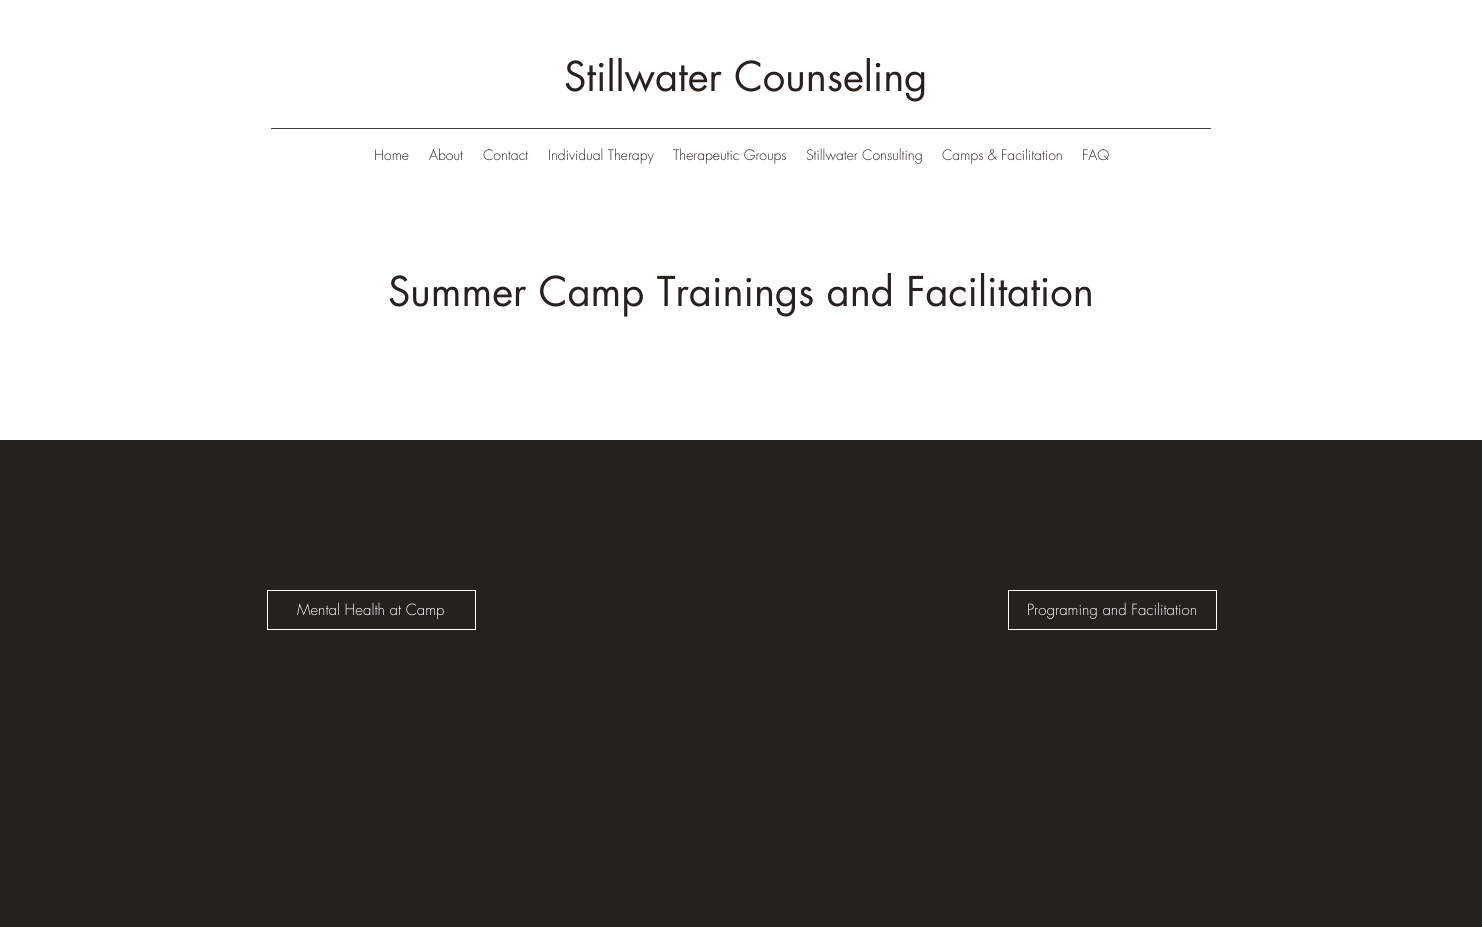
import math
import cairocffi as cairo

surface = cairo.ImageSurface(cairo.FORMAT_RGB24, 1482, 927)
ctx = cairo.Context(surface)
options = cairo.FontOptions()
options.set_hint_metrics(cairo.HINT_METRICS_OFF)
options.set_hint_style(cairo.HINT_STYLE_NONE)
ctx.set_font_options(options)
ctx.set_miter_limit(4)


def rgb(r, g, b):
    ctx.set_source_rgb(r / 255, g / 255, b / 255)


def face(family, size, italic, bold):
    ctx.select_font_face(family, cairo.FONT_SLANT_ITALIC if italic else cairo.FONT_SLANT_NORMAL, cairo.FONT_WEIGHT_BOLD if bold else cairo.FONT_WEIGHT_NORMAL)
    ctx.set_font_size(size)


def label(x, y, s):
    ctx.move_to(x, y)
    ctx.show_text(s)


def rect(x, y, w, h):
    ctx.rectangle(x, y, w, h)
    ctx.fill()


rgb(255, 255, 255)
ctx.paint()
face('futura', 40, 0, 0)
rgb(39, 33, 30)
label(564, 91, 'Stillwater Counseling')
rgb(71, 66, 64)
rect(271, 128, 940, 1)
face('futura Light', 14, 0, 0)
rgb(39, 33, 30)
label(374, 160, 'Home')
label(429, 160, 'About')
label(483, 160, 'Contact')
label(548, 160, 'Individual Therapy')
label(673, 160, 'Therapeutic Groups')
label(806, 160, 'Stillwater Consulting')
rgb(49, 40, 36)
label(942, 160, 'Camps & Facilitation')
rgb(39, 33, 30)
label(1082, 160, 'FAQ')
face('futura', 40, 0, 0)
label(388, 306, 'Summer Camp Trainings and Facilitation')
rect(0, 440, 1482, 340)
ctx.rectangle(267.5, 590.5, 208, 39)
rgb(255, 255, 255)
ctx.set_line_width(1)
ctx.stroke()
face('futura Light', 15, 0, 0)
label(297, 615, 'Mental Health at Camp')
ctx.rectangle(1008.5, 590.5, 208, 39)
ctx.stroke()
label(1027, 615, 'Programing and Facilitation')
rgb(39, 33, 30)
rect(0, 780, 1482, 147)
surface.write_to_png('render.png')
